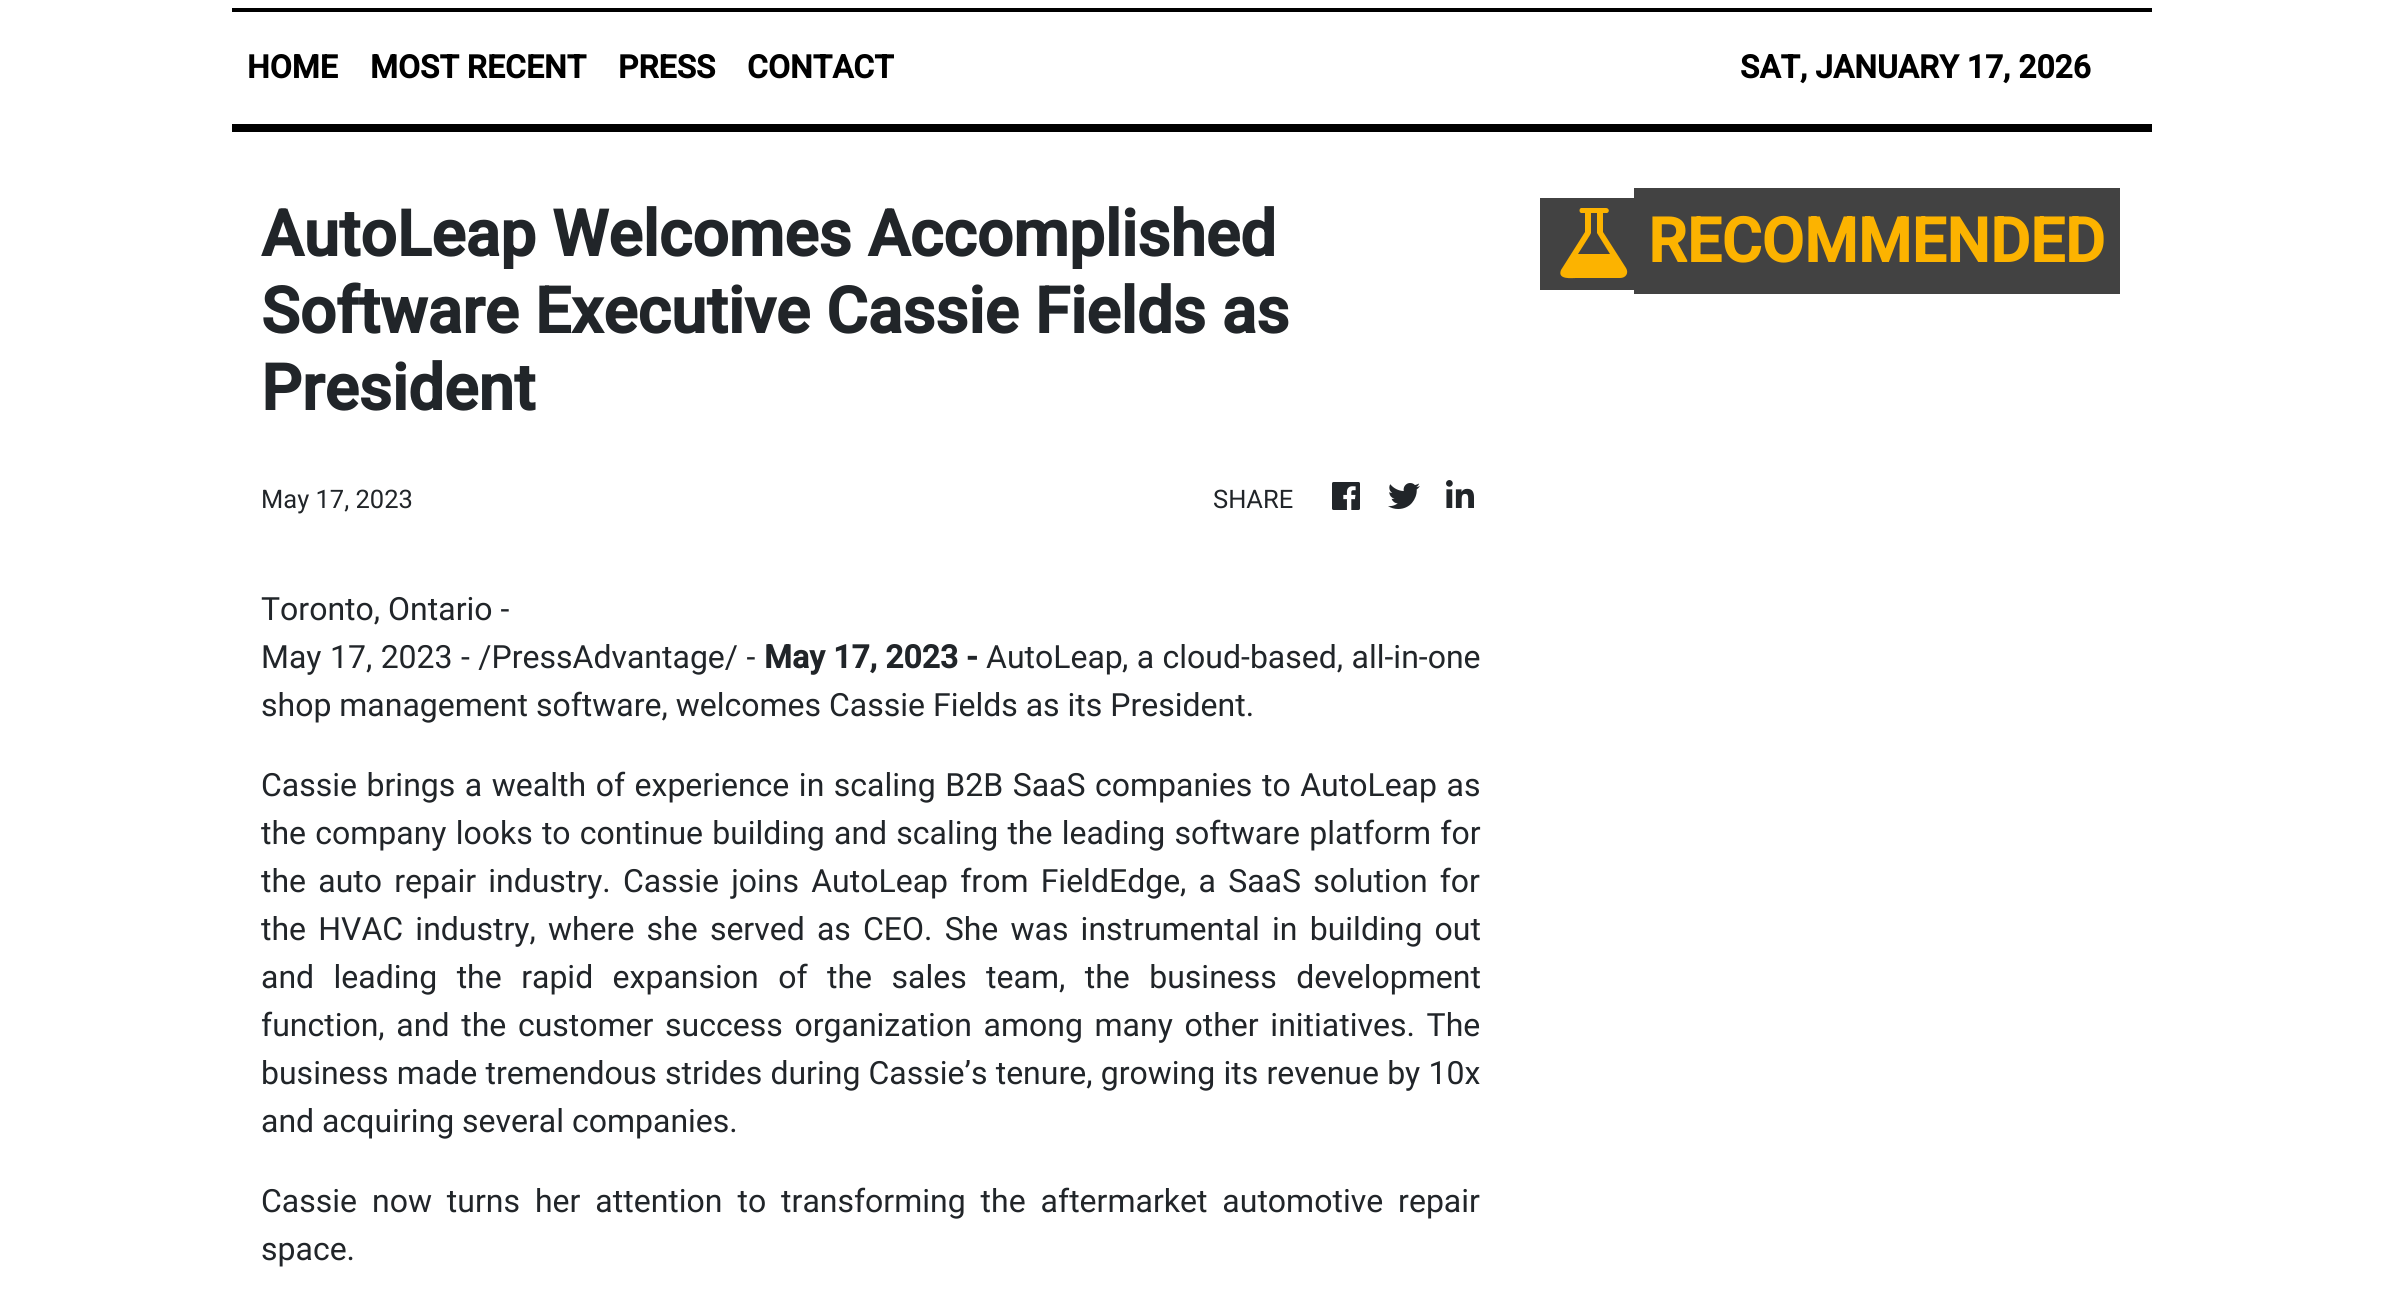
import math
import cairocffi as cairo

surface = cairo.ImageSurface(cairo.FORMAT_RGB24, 2382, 1298)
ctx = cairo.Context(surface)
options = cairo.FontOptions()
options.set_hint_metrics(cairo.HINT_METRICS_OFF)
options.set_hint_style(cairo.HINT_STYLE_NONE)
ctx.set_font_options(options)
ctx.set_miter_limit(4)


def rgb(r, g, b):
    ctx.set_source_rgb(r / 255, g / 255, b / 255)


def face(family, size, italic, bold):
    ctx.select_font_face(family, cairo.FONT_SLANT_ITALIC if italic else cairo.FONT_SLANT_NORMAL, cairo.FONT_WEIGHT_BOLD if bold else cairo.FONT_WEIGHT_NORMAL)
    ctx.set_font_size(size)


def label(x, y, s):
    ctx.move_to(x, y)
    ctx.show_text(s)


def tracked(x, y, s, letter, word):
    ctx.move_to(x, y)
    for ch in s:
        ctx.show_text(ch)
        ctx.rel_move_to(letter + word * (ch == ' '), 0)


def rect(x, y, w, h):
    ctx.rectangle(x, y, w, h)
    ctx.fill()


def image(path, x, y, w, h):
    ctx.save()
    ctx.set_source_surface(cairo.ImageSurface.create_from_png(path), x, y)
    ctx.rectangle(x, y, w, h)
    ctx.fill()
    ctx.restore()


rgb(255, 255, 255)
ctx.paint()
rgb(0, 0, 0)
rect(232, 8, 1920, 4)
rect(232, 124, 1920, 8)
face('Roboto', 32, 0, 1)
label(247, 78, 'HOME')
label(370, 78, 'MOST RECENT')
label(618, 78, 'PRESS')
label(747, 78, 'CONTACT')
label(1740, 78, 'SAT, JANUARY 17, 2026')
face('Roboto', 64, 0, 1)
rgb(33, 37, 41)
label(261, 256, 'AutoLeap Welcomes Accomplished')
label(261, 333, 'Software Executive Cassie Fields as')
label(261, 410, 'President')
face('Roboto', 25.5, 0, 0)
label(261, 508, 'May 17, 2023')
label(1213, 508, 'SHARE')
image('image0.png', 1332, 482, 28, 28)
image('image1.png', 1388, 483, 32, 26)
image('image2.png', 1446, 480, 28, 28)
face('Roboto', 32, 0, 0)
label(261, 620, 'Toronto, Ontario -')
tracked(261, 668, 'May 17, 2023 - /PressAdvantage/ -', 0, 0.5)
face('Roboto', 32, 0, 1)
tracked(764, 668, 'May 17, 2023 -', 0, 0.5)
face('Roboto', 32, 0, 0)
label(986, 668, 'AutoLeap')
tracked(1122, 668, ', a cloud-based, all-in-one', 0, 0.5)
label(261, 716, 'shop management software, welcomes Cassie Fields as its President.')
tracked(261, 796, 'Cassie brings a wealth of experience in scaling B2B SaaS companies to AutoLeap as', 0, 1.6)
tracked(261, 844, 'the company looks to continue building and scaling the leading software platform for', 0, 1.25)
tracked(261, 892, 'the auto repair industry. Cassie joins AutoLeap from FieldEdge, a SaaS solution for', 0, 4.25)
tracked(261, 940, 'the HVAC industry, where she served as CEO. She was instrumental in building out', 0, 4.25)
tracked(261, 988, 'and leading the rapid expansion of the sales team, the business development', 0, 11.5)
tracked(261, 1036, 'function, and the customer success organization among many other initiatives. The', 0, 3.75)
tracked(261, 1084, 'business made tremendous strides during Cassie’s tenure, growing its revenue by 10x', 0, 0.25)
label(261, 1132, 'and acquiring several companies.')
tracked(261, 1212, 'Cassie now turns her attention to transforming the aftermarket automotive repair', 0, 7)
label(261, 1260, 'space.')
rgb(66, 66, 66)
rect(1540, 198, 94, 92)
rect(1634, 188, 486, 106)
rgb(252, 179, 0)
ctx.new_path()
ctx.move_to(1626, 268)
ctx.curve_to(1629, 273, 1626, 278, 1620, 278)
ctx.line_to(1576, 278)
ctx.curve_to(1572, 278, 1557, 280, 1561, 270)
ctx.line_to(1585, 232)
ctx.line_to(1585, 213)
ctx.line_to(1581, 213)
ctx.curve_to(1579, 212, 1579, 209, 1581, 208)
ctx.line_to(1606, 208)
ctx.curve_to(1609, 208, 1610, 212, 1607, 213)
ctx.line_to(1603, 213)
ctx.line_to(1603, 232)
ctx.close_path()
ctx.move_to(1590, 235)
ctx.line_to(1578, 254)
ctx.line_to(1610, 254)
ctx.line_to(1597, 233)
ctx.line_to(1597, 213)
ctx.line_to(1591, 213)
ctx.line_to(1591, 233)
ctx.close_path()
ctx.fill()
face('Roboto', 61.5, 0, 1)
label(1648, 262, 'RECOMMENDED')
surface.write_to_png('render.png')
